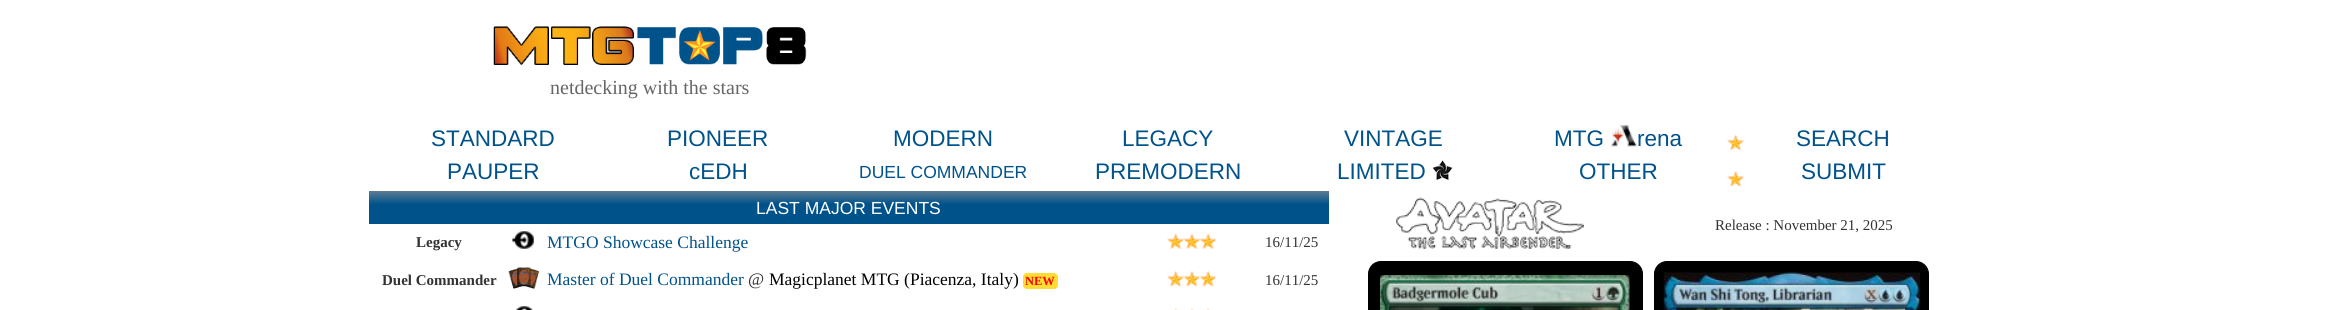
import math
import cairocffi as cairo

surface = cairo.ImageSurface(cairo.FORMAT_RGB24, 2336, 310)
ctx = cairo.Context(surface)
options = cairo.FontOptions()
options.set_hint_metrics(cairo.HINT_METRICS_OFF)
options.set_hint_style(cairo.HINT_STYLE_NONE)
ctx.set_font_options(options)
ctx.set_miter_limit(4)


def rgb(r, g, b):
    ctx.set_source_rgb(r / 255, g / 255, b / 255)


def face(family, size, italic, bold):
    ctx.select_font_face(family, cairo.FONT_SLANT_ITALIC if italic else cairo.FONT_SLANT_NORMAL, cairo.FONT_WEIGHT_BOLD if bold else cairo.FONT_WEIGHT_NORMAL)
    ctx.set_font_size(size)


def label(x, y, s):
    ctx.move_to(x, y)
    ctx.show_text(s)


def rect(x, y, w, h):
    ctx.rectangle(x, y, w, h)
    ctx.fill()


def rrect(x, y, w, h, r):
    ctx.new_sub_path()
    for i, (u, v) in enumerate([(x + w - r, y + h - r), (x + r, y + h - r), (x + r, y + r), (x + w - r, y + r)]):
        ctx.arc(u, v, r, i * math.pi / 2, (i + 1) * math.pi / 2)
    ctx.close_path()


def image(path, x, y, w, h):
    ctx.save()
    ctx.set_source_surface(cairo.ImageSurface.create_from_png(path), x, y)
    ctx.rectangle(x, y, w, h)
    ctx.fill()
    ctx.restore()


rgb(255, 255, 255)
ctx.paint()
image('image0.png', 493, 26, 314, 39)
face('Liberation Serif', 20, 0, 0)
rgb(102, 102, 102)
label(550, 94, 'netdecking with the stars')
face('Liberation Sans', 22.5, 0, 0)
rgb(0, 82, 139)
label(431, 146, 'STANDARD')
label(667, 146, 'PIONEER')
label(893, 146, 'MODERN')
label(1122, 146, 'LEGACY')
label(1344, 146, 'VINTAGE')
label(1554, 146, 'MTG')
image('image1.png', 1611, 125, 26, 22)
label(1637, 146, 'rena')
label(1796, 146, 'SEARCH')
image('image2.png', 1727, 135, 17, 15)
label(447, 179, 'PAUPER')
label(689, 179, 'cEDH')
face('Liberation Sans', 17.5, 0, 0)
label(859, 178, 'DUEL COMMANDER')
face('Liberation Sans', 22.5, 0, 0)
label(1095, 179, 'PREMODERN')
label(1337, 179, 'LIMITED')
image('image3.png', 1432, 160, 21, 20)
label(1579, 179, 'OTHER')
label(1801, 179, 'SUBMIT')
image('image4.png', 1727, 171, 17, 16)
gradient = cairo.LinearGradient(849, 191, 849, 224)
gradient.add_color_stop_rgba(0, 0.365, 0.486, 0.576, 1)
gradient.add_color_stop_rgba(0.4, 0, 0.322, 0.545, 1)
gradient.add_color_stop_rgba(1, 0, 0.322, 0.545, 1)
ctx.set_source(gradient)
rect(369, 191, 960, 33)
face('Liberation Sans', 17.5, 0, 0)
rgb(255, 255, 255)
label(756, 214, 'LAST MAJOR EVENTS')
face('Liberation Serif', 15, 0, 1)
rgb(51, 51, 51)
label(416, 247, 'Legacy')
image('image5.png', 512, 231, 22, 18)
face('Liberation Serif', 17.5, 0, 0)
rgb(0, 82, 139)
label(547, 248, 'MTGO Showcase Challenge')
image('image6.png', 1167, 233, 17, 16)
image('image7.png', 1183, 233, 17, 16)
image('image8.png', 1200, 233, 17, 16)
face('Liberation Serif', 15, 0, 0)
rgb(51, 51, 51)
label(1265, 247, '16/11/25')
face('Liberation Serif', 15, 0, 1)
label(382, 285, 'Duel Commander')
image('image9.png', 508, 267, 31, 22)
face('Liberation Serif', 17.5, 0, 0)
rgb(0, 82, 139)
label(547, 285, 'Master of Duel Commander')
rgb(51, 51, 51)
label(748, 285, '@')
rgb(0, 0, 0)
label(769, 285, 'Magicplanet MTG (Piacenza, Italy)')
rgb(255, 221, 51)
rrect(1023, 273, 35, 16, 4)
ctx.fill()
face('Liberation Serif', 12.5, 0, 1)
rgb(255, 0, 0)
label(1025, 285, 'NEW')
image('image10.png', 1167, 271, 17, 16)
image('image11.png', 1183, 271, 17, 16)
image('image12.png', 1200, 271, 17, 16)
face('Liberation Serif', 15, 0, 0)
rgb(51, 51, 51)
label(1265, 285, '16/11/25')
image('image13.png', 516, 306, 17, 4)
image('image14.png', 1174, 308, 4, 2)
image('image15.png', 1191, 308, 3, 2)
image('image16.png', 1207, 308, 3, 2)
image('image17.png', 1396, 197, 188, 52)
label(1715, 230, 'Release : November 21, 2025')
rgb(0, 0, 0)
rrect(1368.5, 261.5, 274, 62, 12.5)
ctx.fill_preserve()
ctx.set_line_width(1)
ctx.stroke()
image('image18.png', 1380, 275, 250, 35)
rrect(1654.5, 261.5, 274, 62, 12.5)
ctx.fill_preserve()
ctx.stroke()
image('image19.png', 1663, 272, 257, 38)
surface.write_to_png('render.png')
